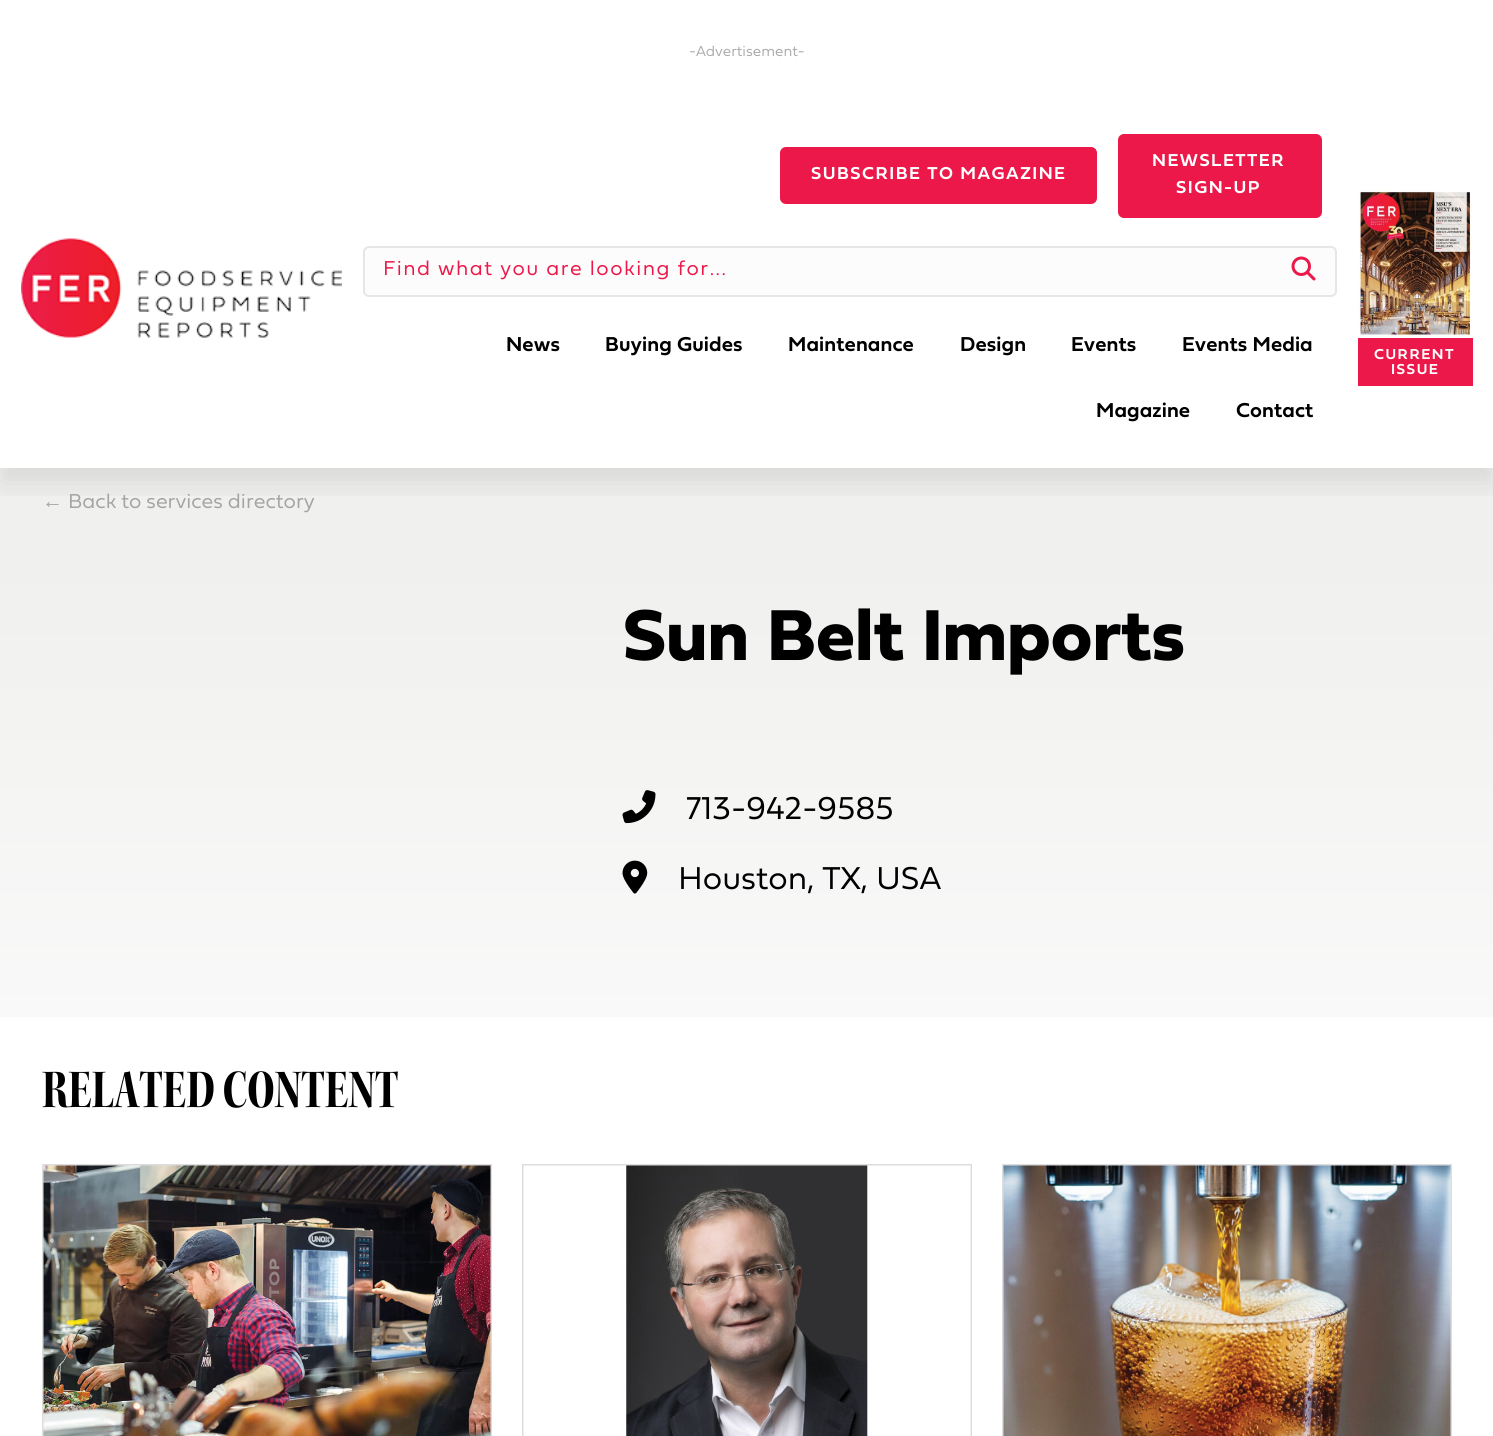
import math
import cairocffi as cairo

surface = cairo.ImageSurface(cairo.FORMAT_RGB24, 1493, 1436)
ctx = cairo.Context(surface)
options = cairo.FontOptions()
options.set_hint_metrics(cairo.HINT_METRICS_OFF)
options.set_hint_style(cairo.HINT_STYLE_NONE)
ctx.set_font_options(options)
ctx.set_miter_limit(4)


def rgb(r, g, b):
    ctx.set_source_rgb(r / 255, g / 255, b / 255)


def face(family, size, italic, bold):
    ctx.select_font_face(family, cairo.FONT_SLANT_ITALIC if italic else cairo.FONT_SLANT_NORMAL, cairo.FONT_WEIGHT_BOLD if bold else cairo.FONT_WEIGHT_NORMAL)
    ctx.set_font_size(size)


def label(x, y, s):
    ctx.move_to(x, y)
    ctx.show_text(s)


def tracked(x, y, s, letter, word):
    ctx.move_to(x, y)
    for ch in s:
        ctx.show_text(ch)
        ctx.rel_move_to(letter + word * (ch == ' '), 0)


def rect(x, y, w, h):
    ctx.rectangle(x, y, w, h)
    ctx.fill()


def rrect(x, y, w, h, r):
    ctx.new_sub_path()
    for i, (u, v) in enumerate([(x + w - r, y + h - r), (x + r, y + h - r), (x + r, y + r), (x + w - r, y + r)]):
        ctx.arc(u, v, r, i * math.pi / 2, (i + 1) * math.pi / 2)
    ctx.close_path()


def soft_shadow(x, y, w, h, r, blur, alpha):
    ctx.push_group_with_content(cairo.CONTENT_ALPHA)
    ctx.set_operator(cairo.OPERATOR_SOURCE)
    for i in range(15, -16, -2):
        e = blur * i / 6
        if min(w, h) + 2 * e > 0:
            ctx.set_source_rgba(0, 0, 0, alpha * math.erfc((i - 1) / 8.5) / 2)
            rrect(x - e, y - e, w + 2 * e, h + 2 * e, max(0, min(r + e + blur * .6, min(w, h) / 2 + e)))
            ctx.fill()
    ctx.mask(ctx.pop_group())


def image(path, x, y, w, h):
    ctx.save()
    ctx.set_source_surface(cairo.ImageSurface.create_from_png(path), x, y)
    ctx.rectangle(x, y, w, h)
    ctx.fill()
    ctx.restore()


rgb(255, 255, 255)
ctx.paint()
face('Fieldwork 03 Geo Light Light', 15, 0, 0)
rgb(172, 172, 172)
label(689, 56, '-Advertisement-')
rgb(240, 240, 238)
rect(0, 468, 1493, 87)
ctx.save()
ctx.rectangle(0, 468, 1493, 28)
ctx.clip()
rgb(0, 0, 0)
soft_shadow(0, 116, 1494, 367, 0, 15, 0.1)
ctx.restore()
image('image0.png', 21, 238, 321, 100)
rgb(237, 24, 74)
rrect(780, 147, 317, 57, 6)
ctx.fill()
face('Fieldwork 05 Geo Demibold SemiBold', 18, 0, 0)
rgb(255, 255, 255)
tracked(811, 179, 'SUBSCRIBE TO MAGAZINE', 1.5, 0)
rgb(237, 24, 74)
rrect(1118, 134, 204, 84, 6)
ctx.fill()
rgb(255, 255, 255)
tracked(1152, 166, 'NEWSLETTER', 1.5, 0)
tracked(1176, 193, 'SIGN-UP', 1.5, 0)
rgb(252, 252, 252)
rrect(364, 247, 972, 49, 5)
ctx.fill_preserve()
rgb(230, 230, 230)
ctx.stroke()
face('Fieldwork 03 Geo Light Light', 21, 0, 0)
rgb(237, 24, 74)
tracked(383, 275, 'Find what you are looking for...', 1.5, 0)
image('image1.png', 1291, 256, 25, 25)
face('Fieldwork 05 Geo Demibold SemiBold', 21, 0, 0)
rgb(0, 0, 0)
tracked(506, 351, 'News', 0.1, 0)
tracked(605, 351, 'Buying Guides', 0.1, 0)
tracked(788, 351, 'Maintenance', 0.1, 0)
tracked(960, 351, 'Design', 0.1, 0)
tracked(1071, 351, 'Events', 0.1, 0)
tracked(1182, 351, 'Events Media', 0.1, 0)
tracked(1096, 417, 'Magazine', 0.1, 0)
tracked(1236, 417, 'Contact', 0.1, 0)
image('image2.png', 1357, 189, 116, 148)
rgb(237, 24, 74)
rect(1358, 338, 115, 48)
face('Fieldwork 05 Geo Demibold SemiBold', 15, 0, 0)
rgb(255, 255, 255)
tracked(1374, 359, 'CURRENT', 1.5, 0)
tracked(1391, 374, 'ISSUE', 1.5, 0)
face('Liberation Sans', 21, 0, 0)
rgb(165, 164, 164)
label(42, 508, '←')
face('Fieldwork 03 Geo Light Light', 21, 0, 0)
label(68, 508, 'Back to services directory')
gradient = cairo.LinearGradient(747, 555, 747, 1017)
gradient.add_color_stop_rgba(0, 0.941, 0.941, 0.933, 1)
gradient.add_color_stop_rgba(1, 0.976, 0.976, 0.976, 1)
ctx.set_source(gradient)
rect(0, 555, 1493, 462)
face('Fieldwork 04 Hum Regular', 75, 0, 1)
rgb(0, 0, 0)
label(623, 660, 'Sun Belt Imports')
image('image3.png', 622, 790, 34, 34)
face('Fieldwork 03 Geo Light Light', 33, 0, 0)
label(686, 819, '713-942-9585')
image('image4.png', 622, 860, 26, 34)
label(678, 889, 'Houston, TX, USA')
face('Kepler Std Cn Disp', 57, 0, 1)
label(42, 1107, 'RELATED CONTENT')
ctx.rectangle(43, 1165, 448, 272)
rgb(221, 221, 221)
ctx.stroke()
image('image5.png', 43, 1165, 448, 271)
ctx.rectangle(523, 1165, 448, 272)
ctx.stroke()
image('image6.png', 523, 1165, 448, 271)
ctx.rectangle(1003, 1165, 448, 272)
ctx.stroke()
image('image7.png', 1003, 1165, 448, 271)
surface.write_to_png('render.png')
